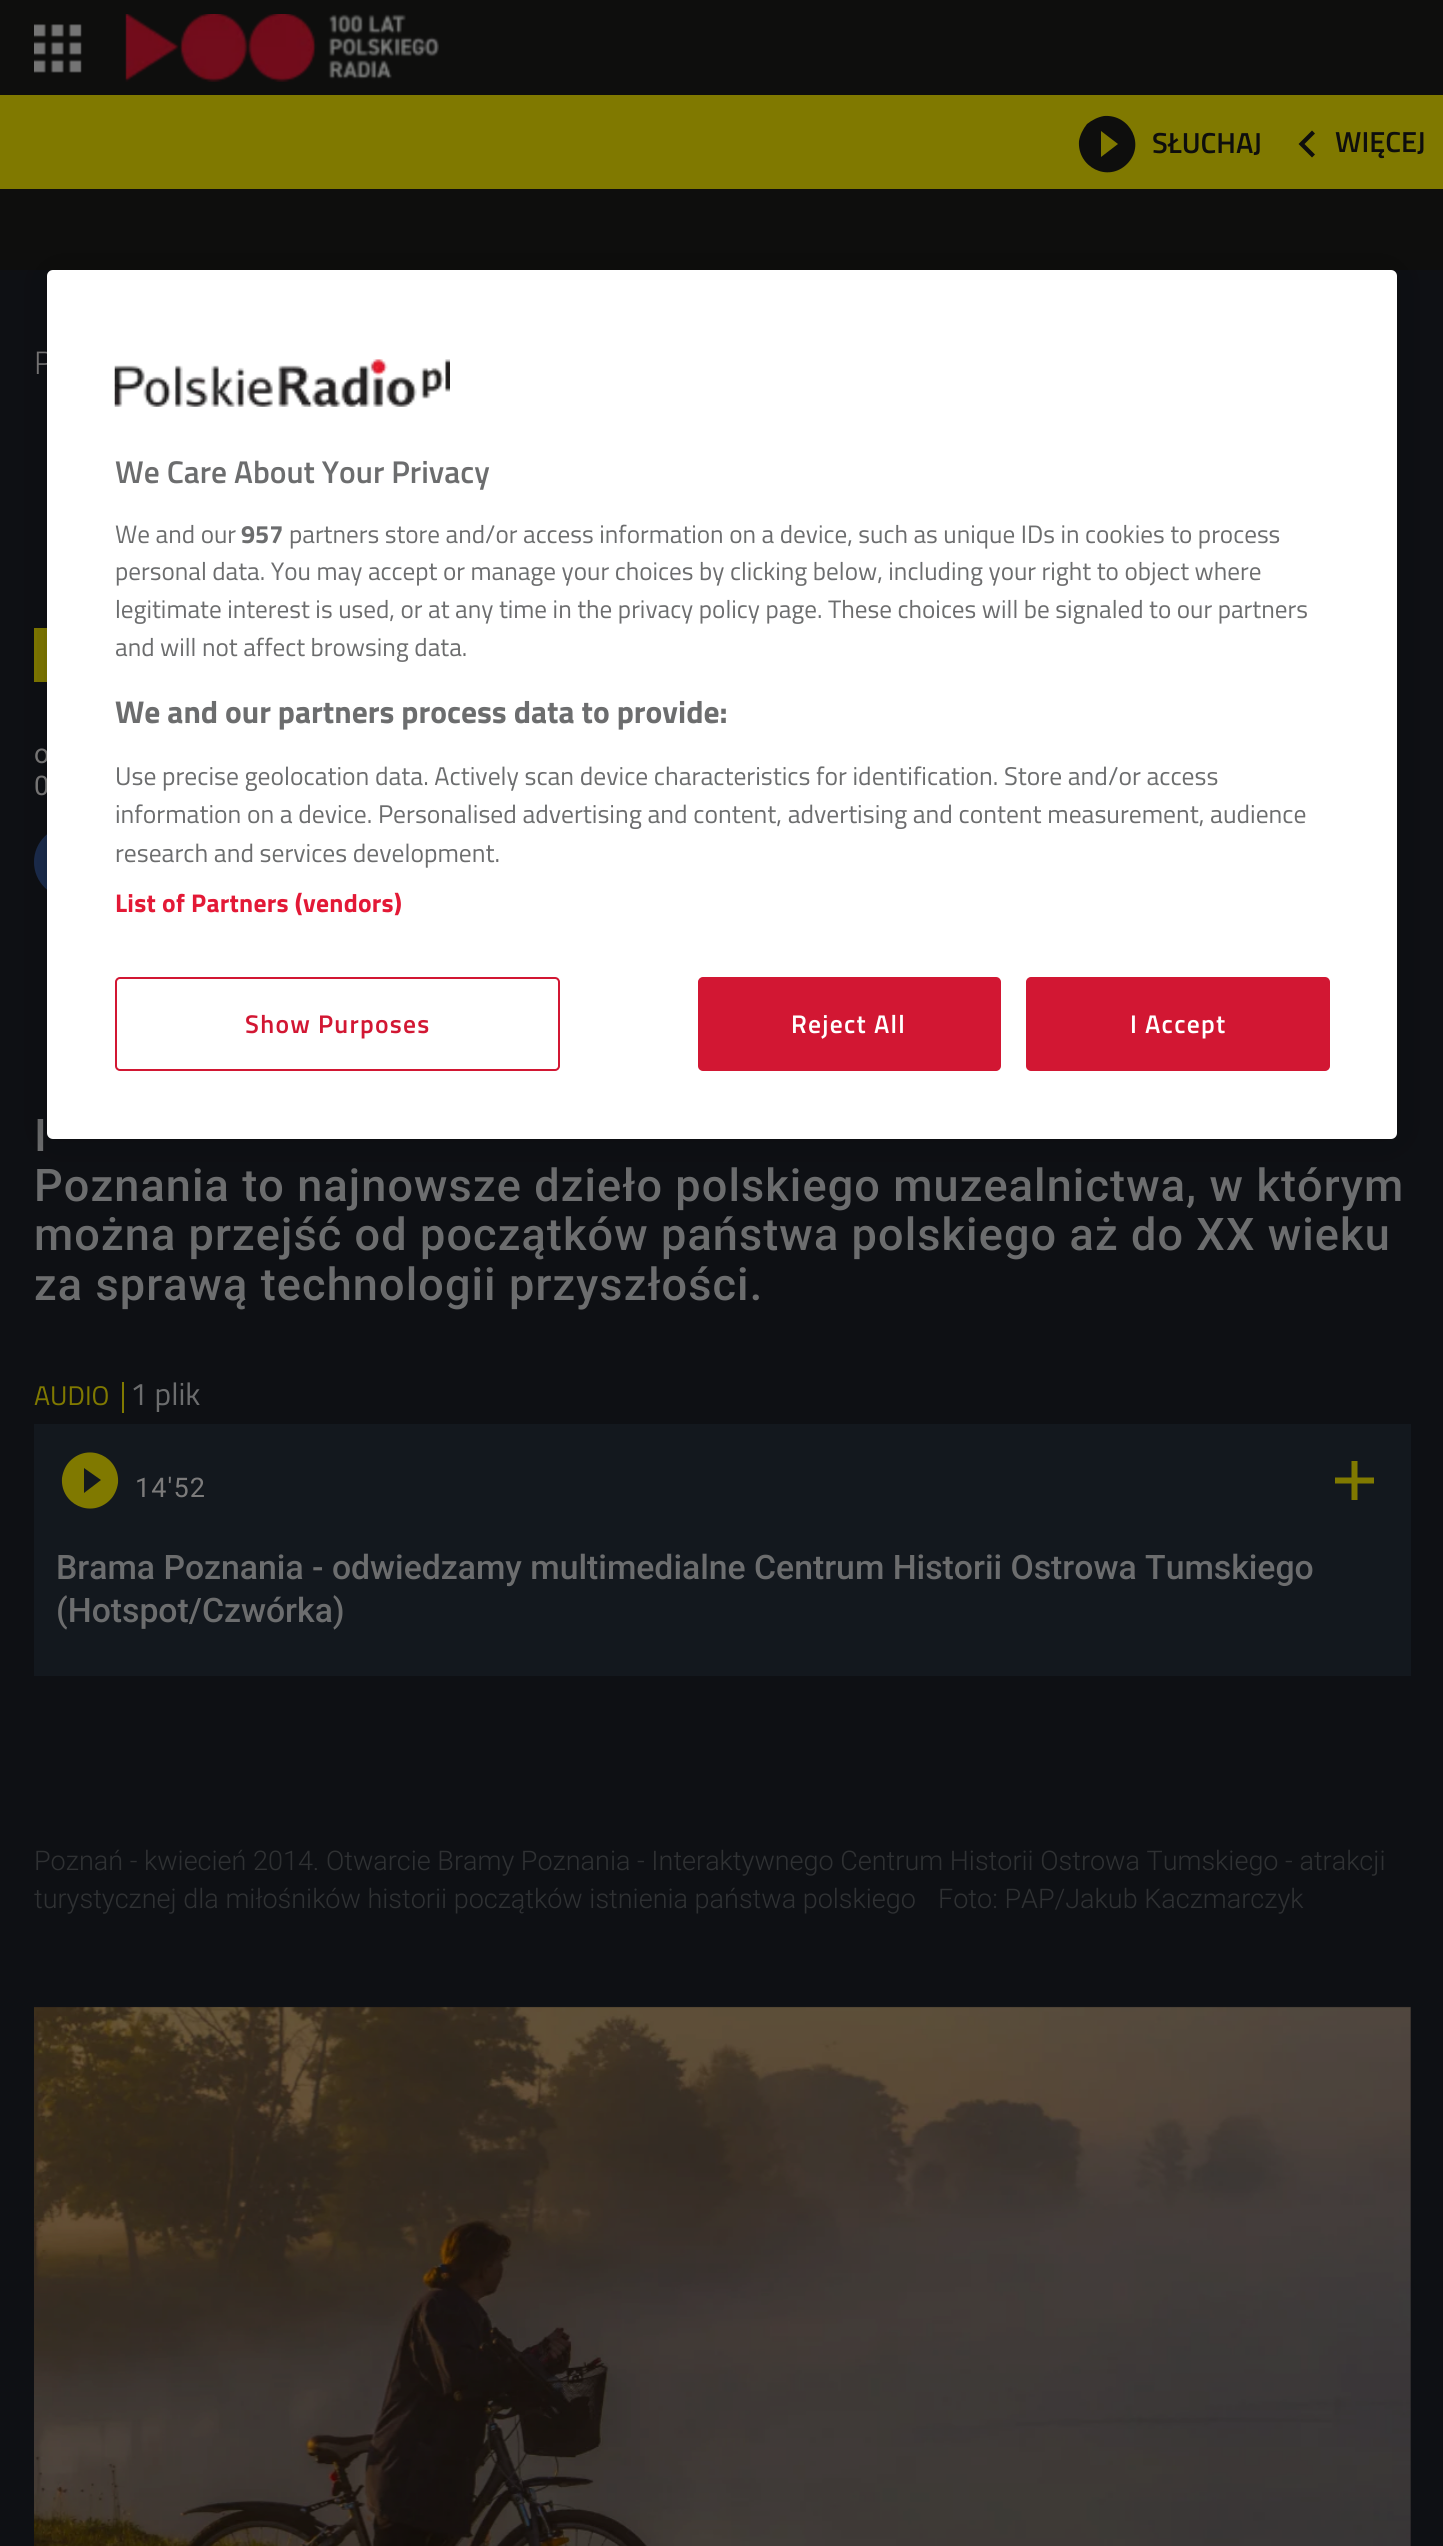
import math
import cairocffi as cairo

surface = cairo.ImageSurface(cairo.FORMAT_RGB24, 1443, 2546)
ctx = cairo.Context(surface)
options = cairo.FontOptions()
options.set_hint_metrics(cairo.HINT_METRICS_OFF)
options.set_hint_style(cairo.HINT_STYLE_NONE)
ctx.set_font_options(options)
ctx.set_miter_limit(4)


def rgb(r, g, b):
    ctx.set_source_rgb(r / 255, g / 255, b / 255)


def face(family, size, italic, bold):
    ctx.select_font_face(family, cairo.FONT_SLANT_ITALIC if italic else cairo.FONT_SLANT_NORMAL, cairo.FONT_WEIGHT_BOLD if bold else cairo.FONT_WEIGHT_NORMAL)
    ctx.set_font_size(size)


def label(x, y, s):
    ctx.move_to(x, y)
    ctx.show_text(s)


def tracked(x, y, s, letter, word):
    ctx.move_to(x, y)
    for ch in s:
        ctx.show_text(ch)
        ctx.rel_move_to(letter + word * (ch == ' '), 0)


def rect(x, y, w, h):
    ctx.rectangle(x, y, w, h)
    ctx.fill()


def rrect(x, y, w, h, r):
    ctx.new_sub_path()
    for i, (u, v) in enumerate([(x + w - r, y + h - r), (x + r, y + h - r), (x + r, y + r), (x + w - r, y + r)]):
        ctx.arc(u, v, r, i * math.pi / 2, (i + 1) * math.pi / 2)
    ctx.close_path()


def soft_shadow(x, y, w, h, r, blur, alpha):
    ctx.push_group_with_content(cairo.CONTENT_ALPHA)
    ctx.set_operator(cairo.OPERATOR_SOURCE)
    for i in range(15, -16, -2):
        e = blur * i / 6
        if min(w, h) + 2 * e > 0:
            ctx.set_source_rgba(0, 0, 0, alpha * math.erfc((i - 1) / 8.5) / 2)
            rrect(x - e, y - e, w + 2 * e, h + 2 * e, max(0, min(r + e + blur * .6, min(w, h) / 2 + e)))
            ctx.fill()
    ctx.mask(ctx.pop_group())


def image(path, x, y, w, h):
    ctx.save()
    ctx.set_source_surface(cairo.ImageSurface.create_from_png(path), x, y)
    ctx.rectangle(x, y, w, h)
    ctx.fill()
    ctx.restore()


rgb(14, 14, 13)
ctx.paint()
image('image0.png', 34, 24, 48, 49)
image('image1.png', 125, 14, 314, 68)
rgb(128, 121, 0)
rect(0, 95, 1443, 94)
rgb(14, 14, 13)
ctx.new_path()
ctx.move_to(1101, 157)
ctx.line_to(1118, 144)
ctx.line_to(1101, 131)
ctx.close_path()
ctx.move_to(1087, 124)
ctx.curve_to(1092, 120, 1098, 117, 1104, 116)
ctx.curve_to(1130, 114, 1146, 145, 1127, 164)
ctx.curve_to(1108, 183, 1077, 167, 1079, 141)
ctx.curve_to(1080, 135, 1083, 129, 1087, 124)
ctx.close_path()
ctx.fill()
face('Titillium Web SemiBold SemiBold', 29, 0, 0)
label(1152, 153, 'SŁUCHAJ')
ctx.new_path()
ctx.move_to(1315, 154.5)
ctx.line_to(1312, 157.5)
ctx.line_to(1298.5, 144)
ctx.line_to(1312, 130.5)
ctx.line_to(1315, 133.5)
ctx.line_to(1304.5, 144)
ctx.close_path()
ctx.fill()
label(1335, 152, 'WIĘCEJ')
rgb(14, 16, 20)
rect(0, 270, 1443, 2276)
face('Roboto Light', 31.5, 0, 0)
rgb(124, 123, 123)
label(34, 374, 'P')
rgb(128, 121, 0)
rect(34, 628, 13, 54)
face('Roboto', 27, 0, 0)
rgb(124, 123, 123)
tracked(34, 763, 'o', 1.12, 0)
tracked(34, 795, '0', 1.12, 0)
rgb(27, 44, 77)
ctx.new_path()
ctx.arc(70, 862, 36, 0, 2 * math.pi)
ctx.fill()
face('Roboto Medium', 45, 0, 0)
rgb(108, 109, 110)
tracked(34, 1151, 'I', 1.12, 0)
tracked(34, 1201, 'Poznania to najnowsze dzieło polskiego muzealnictwa, w którym', 1.12, 0)
tracked(34, 1250, 'można przejść od początków państwa polskiego aż do XX wieku', 1.12, 0)
tracked(34, 1300, 'za sprawą technologii przyszłości.', 1.12, 0)
rgb(128, 121, 0)
rect(122, 1382, 2, 31)
face('Titillium Web', 27, 0, 0)
label(34, 1405, 'AUDIO')
face('Titillium Web', 31.5, 0, 0)
rgb(108, 109, 110)
label(130, 1405, '1 plik')
rgb(19, 24, 30)
rect(34, 1424, 1377, 252)
rgb(128, 121, 0)
ctx.new_path()
ctx.move_to(84, 1493)
ctx.line_to(101, 1480)
ctx.line_to(84, 1468)
ctx.close_path()
ctx.move_to(70, 1461)
ctx.curve_to(89, 1442, 120, 1457, 118, 1483)
ctx.curve_to(117, 1490, 114, 1496, 110, 1500)
ctx.curve_to(91, 1519, 60, 1504, 62, 1478)
ctx.curve_to(63, 1471, 66, 1465, 70, 1461)
ctx.close_path()
ctx.fill()
face('Roboto', 27, 0, 0)
rgb(124, 123, 123)
tracked(135, 1497, '14\'52', 1.12, 0)
rgb(128, 121, 0)
ctx.new_path()
ctx.move_to(1374, 1483.5)
ctx.line_to(1357.5, 1483.5)
ctx.line_to(1357.5, 1500)
ctx.line_to(1351.5, 1500)
ctx.line_to(1351.5, 1483.5)
ctx.line_to(1335, 1483.5)
ctx.line_to(1335, 1477.5)
ctx.line_to(1351.5, 1477.5)
ctx.line_to(1351.5, 1461)
ctx.line_to(1357.5, 1461)
ctx.line_to(1357.5, 1477.5)
ctx.line_to(1374, 1477.5)
ctx.close_path()
ctx.fill()
face('Roboto Medium', 33.75, 0, 0)
rgb(108, 109, 110)
label(56, 1579, 'Brama Poznania - odwiedzamy multimedialne Centrum Historii Ostrowa Tumskiego')
label(56, 1622, '(Hotspot/Czwórka)')
face('Roboto Light', 27, 0, 0)
rgb(47, 49, 51)
label(34, 1870, 'Poznań - kwiecień 2014. Otwarcie Bramy Poznania - Interaktywnego Centrum Historii Ostrowa Tumskiego - atrakcji')
label(34, 1908, 'turystycznej dla miłośników historii początków istnienia państwa polskiego')
label(938, 1908, 'Foto: PAP/Jakub Kaczmarczyk')
image('image2.png', 34, 2006, 1377, 540)
rgb(0, 0, 0)
soft_shadow(47, 270, 1350, 869, 6, 20, 0.2)
rgb(255, 255, 255)
rrect(47, 270, 1350, 869, 6)
ctx.fill()
image('image3.png', 114, 359, 336, 48)
face('Titillium Web SemiBold SemiBold', 31.5, 0, 0)
rgb(108, 109, 110)
label(115, 483, 'We Care About Your Privacy')
face('Titillium Web', 25.2, 0, 0)
label(115, 543, 'We and our')
face('Titillium Web', 25.2, 0, 1)
label(241, 543, '957')
face('Titillium Web', 25.2, 0, 0)
label(289, 543, 'partners store and/or access information on a device, such as unique IDs in cookies to process')
label(115, 580, 'personal data. You may accept or manage your choices by clicking below, including your right to object where')
label(115, 618, 'legitimate interest is used, or at any time in the privacy policy page. These choices will be signaled to our partners')
label(115, 656, 'and will not affect browsing data.')
face('Titillium Web', 31.5, 0, 1)
label(115, 723, 'We and our partners process data to provide:')
face('Titillium Web', 25.6, 0, 0)
label(115, 785, 'Use precise geolocation data. Actively scan device characteristics for identification. Store and/or access')
label(115, 823, 'information on a device. Personalised advertising and content, advertising and content measurement, audience')
label(115, 862, 'research and services development.')
face('Titillium Web', 25.6, 0, 1)
rgb(227, 25, 54)
tracked(115, 912, 'List of Partners (vendors)', 0.25, 0)
rrect(116, 978, 443, 92, 4)
rgb(210, 23, 51)
ctx.stroke()
face('Titillium Web SemiBold SemiBold', 25.6, 0, 0)
tracked(245, 1033, 'Show Purposes', 1.25, 0)
rrect(699, 978, 301, 92, 4)
ctx.fill_preserve()
ctx.stroke()
rgb(255, 255, 255)
tracked(791, 1033, 'Reject All', 1.25, 0)
rgb(210, 23, 51)
rrect(1027, 978, 302, 92, 4)
ctx.fill_preserve()
ctx.stroke()
rgb(255, 255, 255)
tracked(1130, 1033, 'I Accept', 1.25, 0)
surface.write_to_png('render.png')
